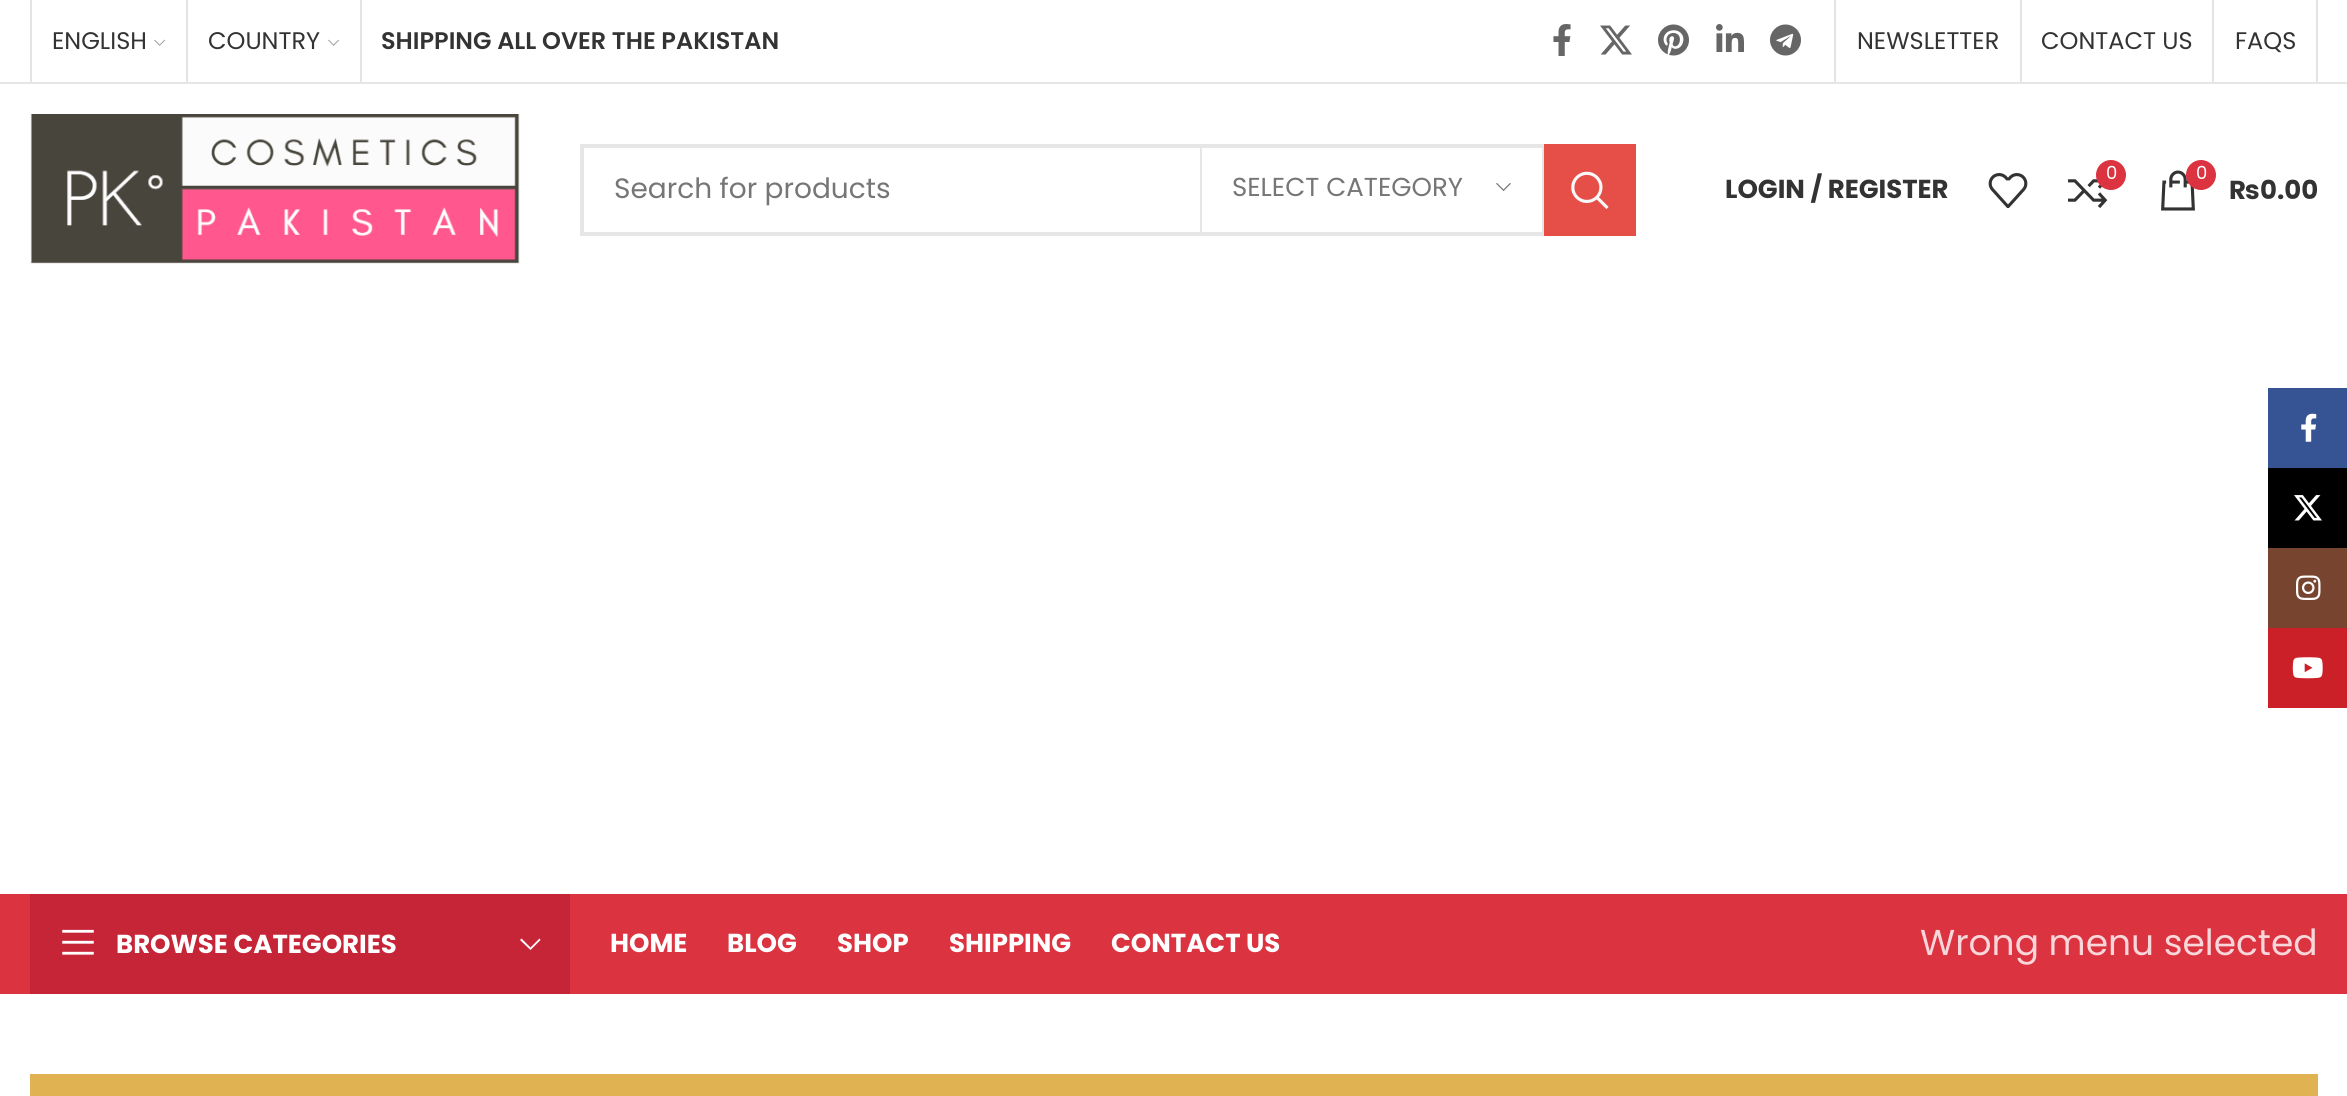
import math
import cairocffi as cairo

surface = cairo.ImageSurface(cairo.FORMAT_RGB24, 2347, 1096)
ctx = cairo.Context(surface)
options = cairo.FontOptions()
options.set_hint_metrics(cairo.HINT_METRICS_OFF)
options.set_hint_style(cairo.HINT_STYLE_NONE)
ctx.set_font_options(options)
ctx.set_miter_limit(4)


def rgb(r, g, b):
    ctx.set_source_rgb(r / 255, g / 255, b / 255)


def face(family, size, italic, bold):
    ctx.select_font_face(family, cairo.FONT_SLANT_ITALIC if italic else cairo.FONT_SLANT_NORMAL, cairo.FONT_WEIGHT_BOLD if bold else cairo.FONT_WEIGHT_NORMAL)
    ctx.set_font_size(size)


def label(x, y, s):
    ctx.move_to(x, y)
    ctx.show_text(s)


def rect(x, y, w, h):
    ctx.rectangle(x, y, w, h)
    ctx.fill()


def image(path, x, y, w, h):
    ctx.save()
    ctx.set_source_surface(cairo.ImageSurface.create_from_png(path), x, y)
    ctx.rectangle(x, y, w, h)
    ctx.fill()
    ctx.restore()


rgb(255, 255, 255)
ctx.paint()
rgb(230, 230, 228)
rect(0, 82, 2347, 2)
rgb(228, 228, 228)
rect(30, 0, 2, 82)
face('Poppins', 24, 0, 0)
rgb(51, 51, 51)
label(52, 49, 'ENGLISH')
image('image0.png', 154, 39, 12, 7)
rgb(228, 228, 228)
rect(186, 0, 2, 82)
rgb(51, 51, 51)
label(208, 49, 'COUNTRY')
image('image0.png', 328, 39, 12, 7)
rgb(228, 228, 228)
rect(360, 0, 2, 82)
face('Poppins SemiBold', 24, 0, 0)
rgb(51, 51, 51)
label(381, 49, 'SHIPPING ALL OVER THE PAKISTAN')
image('image1.png', 1553, 24, 18, 32)
image('image2.png', 1600, 25, 32, 30)
image('image3.png', 1658, 24, 31, 32)
image('image4.png', 1716, 24, 28, 28)
image('image5.png', 1770, 24, 31, 32)
rgb(228, 228, 228)
rect(1834, 0, 2, 82)
face('Poppins', 24, 0, 0)
rgb(51, 51, 51)
label(1857, 49, 'NEWSLETTER')
rgb(228, 228, 228)
rect(2020, 0, 2, 82)
rgb(51, 51, 51)
label(2041, 49, 'CONTACT US')
rgb(228, 228, 228)
rect(2212, 0, 2, 82)
rgb(51, 51, 51)
label(2235, 49, 'FAQS')
rgb(228, 228, 228)
rect(2316, 0, 2, 82)
image('image6.png', 30, 114, 490, 150)
ctx.rectangle(582, 146, 1052, 88)
rgb(230, 230, 230)
ctx.set_line_width(4)
ctx.stroke()
face('Poppins', 28, 0, 0)
rgb(118, 118, 118)
label(614, 198, 'Search for products')
rgb(230, 230, 230)
rect(1542, 148, 2, 84)
rect(1200, 148, 2, 84)
face('Poppins', 26, 0, 0)
rgb(118, 118, 118)
label(1232, 196, 'SELECT CATEGORY')
image('image7.png', 1496, 183, 15, 8)
rgb(230, 79, 72)
rect(1544, 144, 92, 92)
image('image8.png', 1571, 171, 38, 38)
face('Poppins', 26, 0, 1)
rgb(51, 51, 51)
label(1725, 198, 'LOGIN / REGISTER')
image('image9.png', 1988, 173, 40, 35)
image('image10.png', 2068, 179, 40, 29)
rgb(219, 51, 64)
ctx.arc(2111, 175, 15, 0, 2 * math.pi)
ctx.fill()
face('Poppins', 18, 0, 0)
rgb(255, 255, 255)
label(2106, 179, '0')
image('image11.png', 2161, 170, 34, 41)
rgb(219, 51, 64)
ctx.arc(2201, 175, 15, 0, 2 * math.pi)
ctx.fill()
rgb(255, 255, 255)
label(2196, 179, '0')
face('Poppins', 26, 0, 1)
rgb(51, 51, 51)
label(2229, 199, '₨0.00')
rgb(219, 51, 64)
rect(0, 894, 2347, 100)
rgb(198, 36, 55)
rect(30, 894, 540, 100)
image('image12.png', 62, 929, 32, 26)
rgb(255, 255, 255)
label(116, 953, 'BROWSE CATEGORIES')
ctx.new_path()
ctx.move_to(539.5, 938.5)
ctx.line_to(530.5, 947.5)
ctx.line_to(521.5, 938.5)
ctx.line_to(520, 940)
ctx.line_to(530.5, 950)
ctx.line_to(540.5, 940)
ctx.close_path()
ctx.fill()
label(610, 952, 'HOME')
label(727, 952, 'BLOG')
label(837, 952, 'SHOP')
label(949, 952, 'SHIPPING')
label(1111, 952, 'CONTACT US')
face('Poppins', 36, 0, 0)
rgb(248, 214, 217)
label(1920, 955, 'Wrong menu selected')
rgb(224, 178, 82)
rect(30, 1074, 2288, 22)
rgb(54, 84, 147)
rect(2268, 388, 79, 80)
image('image13.png', 2301, 413, 16, 29)
rgb(0, 0, 0)
rect(2268, 468, 79, 80)
image('image14.png', 2294, 495, 28, 26)
rgb(119, 68, 48)
rect(2268, 548, 79, 80)
image('image15.png', 2296, 575, 25, 25)
rgb(203, 32, 39)
rect(2268, 628, 79, 80)
image('image16.png', 2292, 657, 31, 22)
surface.write_to_png('render.png')
